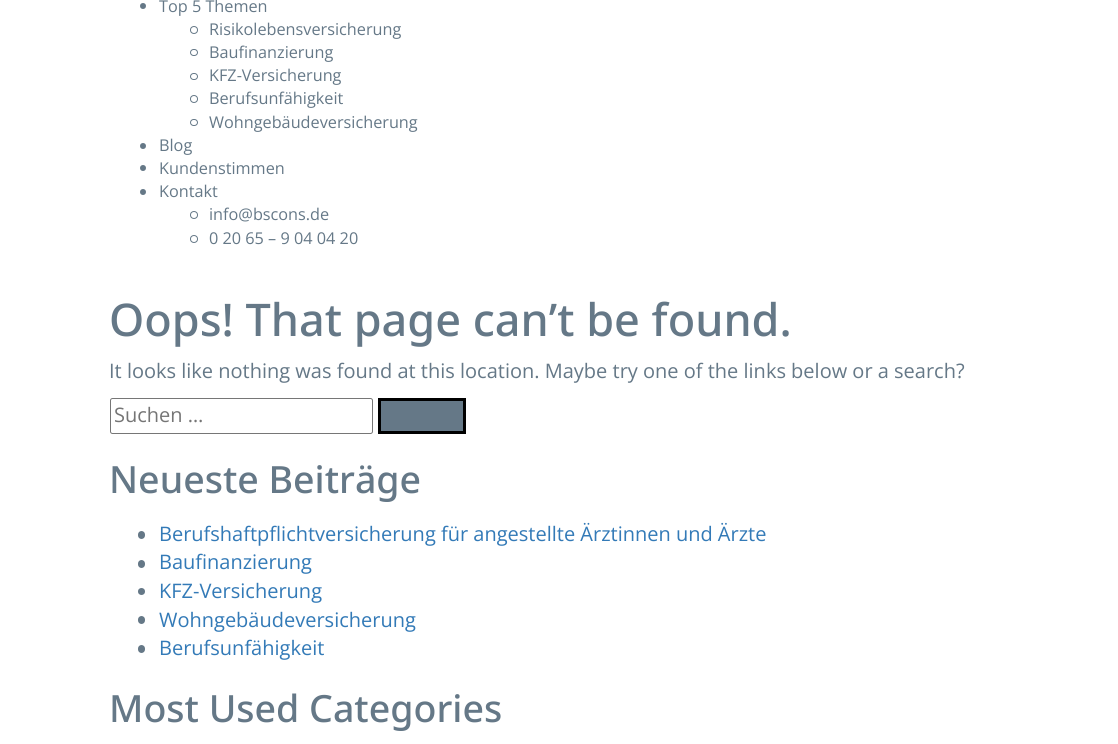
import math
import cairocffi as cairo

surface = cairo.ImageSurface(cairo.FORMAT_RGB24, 1118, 744)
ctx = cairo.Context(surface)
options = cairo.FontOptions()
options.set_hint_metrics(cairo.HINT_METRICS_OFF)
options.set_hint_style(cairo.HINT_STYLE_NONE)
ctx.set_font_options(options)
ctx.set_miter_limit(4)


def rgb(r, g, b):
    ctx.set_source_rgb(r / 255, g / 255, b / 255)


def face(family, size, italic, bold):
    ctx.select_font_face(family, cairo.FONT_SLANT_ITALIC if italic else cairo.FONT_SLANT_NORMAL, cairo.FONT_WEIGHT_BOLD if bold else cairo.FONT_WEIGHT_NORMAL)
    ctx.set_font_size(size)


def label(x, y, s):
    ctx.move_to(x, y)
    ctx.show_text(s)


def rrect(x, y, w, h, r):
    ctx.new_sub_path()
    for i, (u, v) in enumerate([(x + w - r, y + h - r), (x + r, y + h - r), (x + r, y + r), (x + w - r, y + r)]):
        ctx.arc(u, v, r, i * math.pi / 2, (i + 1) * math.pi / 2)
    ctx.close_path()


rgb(255, 255, 255)
ctx.paint()
rgb(101, 120, 135)
ctx.arc(143, 6, 3, 0, 2 * math.pi)
ctx.fill()
face('Open Sans', 16.25, 0, 0)
label(159, 12, 'Top 5 Themen')
ctx.new_path()
ctx.arc(194, 30, 3.5, 0, 2 * math.pi)
ctx.set_line_width(1)
ctx.stroke()
label(209, 35, 'Risikolebensversicherung')
rrect(190.5, 49.5, 7, 6, 3)
ctx.stroke()
label(209, 58, 'Baufinanzierung')
rrect(190.5, 73.5, 7, 6, 3)
ctx.stroke()
label(209, 81, 'KFZ-Versicherung')
ctx.new_path()
ctx.arc(194, 99, 3.5, 0, 2 * math.pi)
ctx.stroke()
label(209, 104, 'Berufsunfähigkeit')
rrect(190.5, 119.5, 7, 6, 3)
ctx.stroke()
label(209, 128, 'Wohngebäudeversicherung')
ctx.new_path()
ctx.arc(143, 146, 3, 0, 2 * math.pi)
ctx.fill()
label(159, 151, 'Blog')
ctx.new_path()
ctx.arc(143, 168, 3, 0, 2 * math.pi)
ctx.fill()
label(159, 174, 'Kundenstimmen')
ctx.new_path()
ctx.arc(143, 192, 3, 0, 2 * math.pi)
ctx.fill()
label(159, 197, 'Kontakt')
ctx.new_path()
ctx.arc(194, 215, 3.5, 0, 2 * math.pi)
ctx.stroke()
label(209, 220, 'info@bscons.de')
ctx.new_path()
ctx.arc(194, 239, 3.5, 0, 2 * math.pi)
ctx.stroke()
label(209, 244, '0 20 65 – 9 04 04 20')
face('Noto Sans Medium', 45, 0, 0)
label(109, 336, 'Oops! That page can’t be found.')
face('Open Sans', 20, 0, 0)
label(109, 378, 'It looks like nothing was found at this location. Maybe try one of the links below or a search?')
rrect(110.5, 398.5, 262, 35, 2)
rgb(118, 118, 118)
ctx.stroke()
rgb(117, 117, 117)
label(114, 422, 'Suchen …')
rgb(101, 120, 135)
ctx.rectangle(379.5, 399.5, 85, 33)
ctx.fill_preserve()
rgb(0, 0, 0)
ctx.set_line_width(3)
ctx.stroke()
face('Noto Sans Medium', 37.5, 0, 0)
rgb(101, 120, 135)
label(109, 493, 'Neueste Beiträge')
rrect(138, 531, 7, 8, 3.5)
ctx.fill()
face('Open Sans', 20, 0, 0)
rgb(51, 122, 183)
label(159, 541, 'Berufshaftpflichtversicherung für angestellte Ärztinnen und Ärzte')
rgb(101, 120, 135)
rrect(138, 560, 7, 8, 3.5)
ctx.fill()
rgb(51, 122, 183)
label(159, 569, 'Baufinanzierung')
rgb(101, 120, 135)
ctx.new_path()
ctx.arc(141.5, 591.5, 3.5, 0, 2 * math.pi)
ctx.fill()
rgb(51, 122, 183)
label(159, 598, 'KFZ-Versicherung')
rgb(101, 120, 135)
rrect(138, 616, 7, 8, 3.5)
ctx.fill()
rgb(51, 122, 183)
label(159, 627, 'Wohngebäudeversicherung')
rgb(101, 120, 135)
rrect(138, 645, 7, 8, 3.5)
ctx.fill()
rgb(51, 122, 183)
label(159, 655, 'Berufsunfähigkeit')
face('Noto Sans Medium', 37.5, 0, 0)
rgb(101, 120, 135)
label(109, 722, 'Most Used Categories')
surface.write_to_png('render.png')
